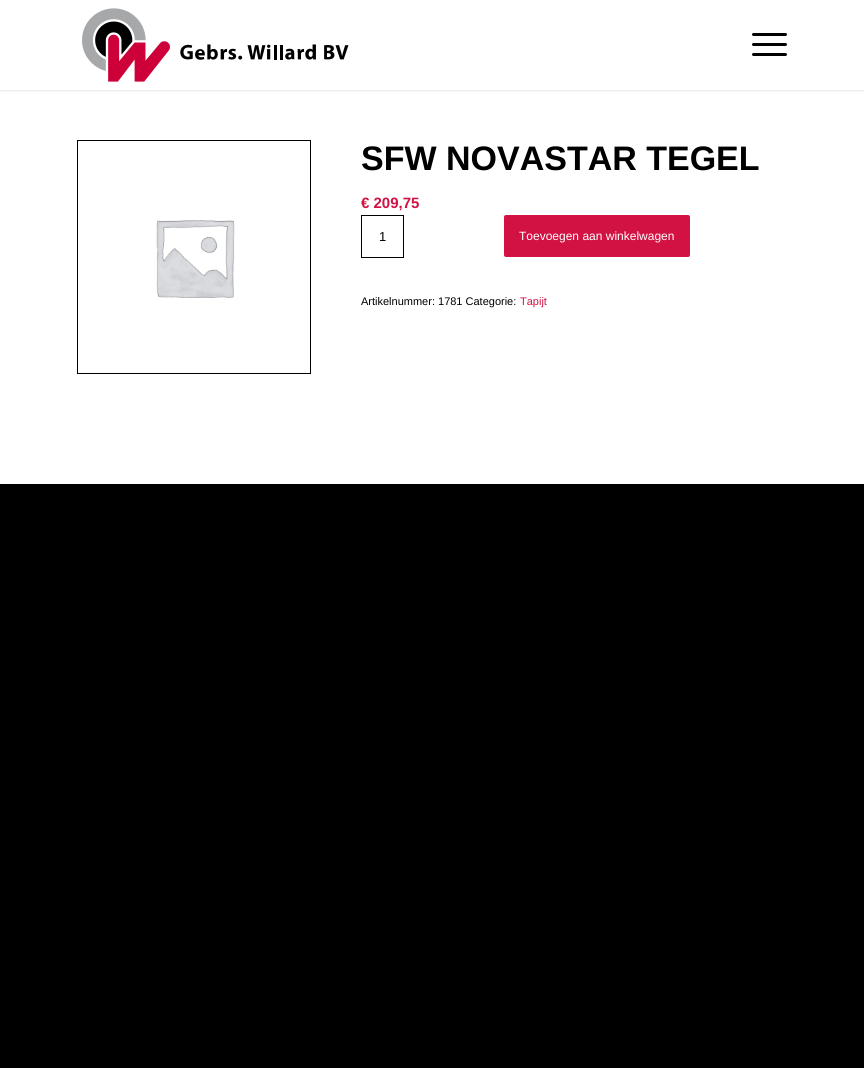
import math
import cairocffi as cairo

surface = cairo.ImageSurface(cairo.FORMAT_RGB24, 864, 1068)
ctx = cairo.Context(surface)
options = cairo.FontOptions()
options.set_hint_metrics(cairo.HINT_METRICS_OFF)
options.set_hint_style(cairo.HINT_STYLE_NONE)
ctx.set_font_options(options)
ctx.set_miter_limit(4)


def rgb(r, g, b):
    ctx.set_source_rgb(r / 255, g / 255, b / 255)


def face(family, size, italic, bold):
    ctx.select_font_face(family, cairo.FONT_SLANT_ITALIC if italic else cairo.FONT_SLANT_NORMAL, cairo.FONT_WEIGHT_BOLD if bold else cairo.FONT_WEIGHT_NORMAL)
    ctx.set_font_size(size)


def label(x, y, s):
    ctx.move_to(x, y)
    ctx.show_text(s)


def rect(x, y, w, h):
    ctx.rectangle(x, y, w, h)
    ctx.fill()


def rrect(x, y, w, h, r):
    ctx.new_sub_path()
    for i, (u, v) in enumerate([(x + w - r, y + h - r), (x + r, y + h - r), (x + r, y + r), (x + w - r, y + r)]):
        ctx.arc(u, v, r, i * math.pi / 2, (i + 1) * math.pi / 2)
    ctx.close_path()


def soft_shadow(x, y, w, h, r, blur, alpha):
    ctx.push_group_with_content(cairo.CONTENT_ALPHA)
    ctx.set_operator(cairo.OPERATOR_SOURCE)
    for i in range(15, -16, -2):
        e = blur * i / 6
        if min(w, h) + 2 * e > 0:
            ctx.set_source_rgba(0, 0, 0, alpha * math.erfc((i - 1) / 8.5) / 2)
            rrect(x - e, y - e, w + 2 * e, h + 2 * e, max(0, min(r + e + blur * .6, min(w, h) / 2 + e)))
            ctx.fill()
    ctx.mask(ctx.pop_group())


def image(path, x, y, w, h):
    ctx.save()
    ctx.set_source_surface(cairo.ImageSurface.create_from_png(path), x, y)
    ctx.rectangle(x, y, w, h)
    ctx.fill()
    ctx.restore()


rgb(0, 0, 0)
ctx.paint()
rgb(255, 255, 255)
rect(0, 0, 864, 484)
ctx.save()
ctx.rectangle(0, 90, 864, 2)
ctx.clip()
rgb(0, 0, 0)
soft_shadow(-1, -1, 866, 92, 0, 1, 0.1)
ctx.restore()
image('image0.png', 82, 8, 267, 74)
rgb(0, 0, 0)
rrect(752, 43, 35, 3, 1.5)
ctx.fill()
rrect(752, 33, 35, 3, 1.5)
ctx.fill()
rrect(752, 53, 35, 3, 1.5)
ctx.fill()
ctx.rectangle(77.5, 140.5, 233, 233)
ctx.set_line_width(1)
ctx.stroke()
image('image1.png', 156, 220, 79, 78)
face('Liberation Sans', 34, 0, 1)
label(361, 170, 'SFW NOVASTAR TEGEL')
face('Liberation Sans', 15, 0, 1)
rgb(209, 18, 66)
label(361, 208, '€ 209,75')
ctx.rectangle(361.5, 215.5, 42, 42)
rgb(0, 0, 0)
ctx.stroke()
face('Liberation Sans', 13, 0, 0)
label(379, 241, '1')
rgb(209, 18, 66)
rrect(504, 215, 186, 42, 2)
ctx.fill()
face('Liberation Sans', 12, 0, 0)
rgb(255, 255, 255)
label(519, 240, 'Toevoegen aan winkelwagen')
face('Liberation Sans', 11, 0, 0)
rgb(0, 0, 0)
label(361, 305, 'Artikelnummer: 1781 Categorie:')
rgb(209, 18, 66)
label(520, 305, 'Tapijt')
surface.write_to_png('render.png')
